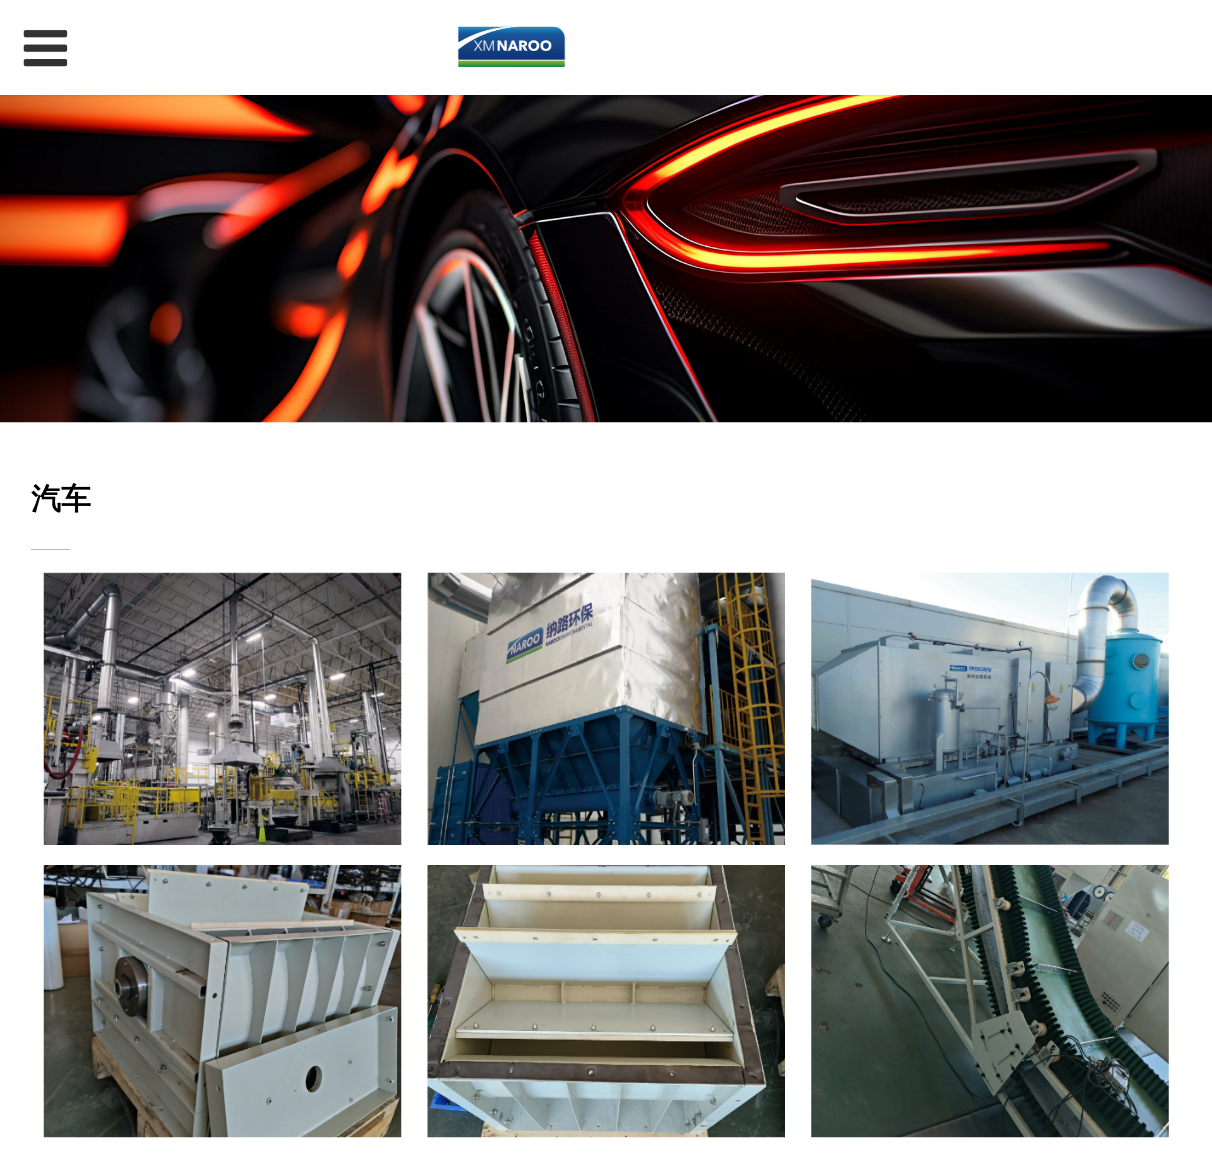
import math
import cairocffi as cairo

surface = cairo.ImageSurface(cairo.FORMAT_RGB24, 1212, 1164)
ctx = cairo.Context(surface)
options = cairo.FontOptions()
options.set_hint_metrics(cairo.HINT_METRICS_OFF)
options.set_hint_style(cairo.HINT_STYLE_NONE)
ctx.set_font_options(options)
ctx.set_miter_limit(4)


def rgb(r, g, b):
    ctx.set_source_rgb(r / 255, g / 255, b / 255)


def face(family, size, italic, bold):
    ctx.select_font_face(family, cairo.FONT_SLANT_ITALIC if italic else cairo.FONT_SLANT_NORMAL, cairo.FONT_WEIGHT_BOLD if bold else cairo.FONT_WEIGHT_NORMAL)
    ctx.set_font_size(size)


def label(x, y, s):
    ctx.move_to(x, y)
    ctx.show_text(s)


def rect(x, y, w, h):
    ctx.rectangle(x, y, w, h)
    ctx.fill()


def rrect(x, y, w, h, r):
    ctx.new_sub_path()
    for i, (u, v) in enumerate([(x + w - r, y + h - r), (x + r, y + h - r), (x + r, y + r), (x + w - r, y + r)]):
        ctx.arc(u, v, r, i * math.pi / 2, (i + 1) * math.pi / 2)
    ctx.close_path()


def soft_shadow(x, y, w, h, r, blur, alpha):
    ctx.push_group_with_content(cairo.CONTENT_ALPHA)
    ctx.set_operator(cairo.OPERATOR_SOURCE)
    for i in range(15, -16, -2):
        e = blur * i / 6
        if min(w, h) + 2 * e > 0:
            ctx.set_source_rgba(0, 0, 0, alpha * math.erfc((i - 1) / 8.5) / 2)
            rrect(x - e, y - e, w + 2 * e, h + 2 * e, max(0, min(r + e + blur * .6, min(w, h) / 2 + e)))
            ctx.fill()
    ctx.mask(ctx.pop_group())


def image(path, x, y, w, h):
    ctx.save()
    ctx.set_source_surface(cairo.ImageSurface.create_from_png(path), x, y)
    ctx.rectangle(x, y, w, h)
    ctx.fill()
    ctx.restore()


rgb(255, 255, 255)
ctx.paint()
image('image2.png', 0, 95, 1212, 328)
ctx.save()
ctx.rectangle(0, 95, 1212, 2)
ctx.clip()
rgb(0, 0, 0)
soft_shadow(0, 1, 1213, 95, 0, 1, 0.1)
ctx.restore()
image('image0.png', 23, 30, 45, 37)
image('image1.png', 458, 26, 108, 41)
face('WenQuanYi Zen Hei', 30, 0, 1)
rgb(0, 0, 0)
label(31, 509, '汽车')
rgb(187, 187, 187)
rect(31, 549, 39, 1)
image('image3.png', 43, 572, 359, 273)
image('image4.png', 427, 572, 358, 273)
image('image5.png', 811, 572, 358, 273)
image('image6.png', 43, 865, 359, 273)
image('image7.png', 427, 865, 358, 273)
image('image8.png', 811, 865, 358, 273)
surface.write_to_png('render.png')
